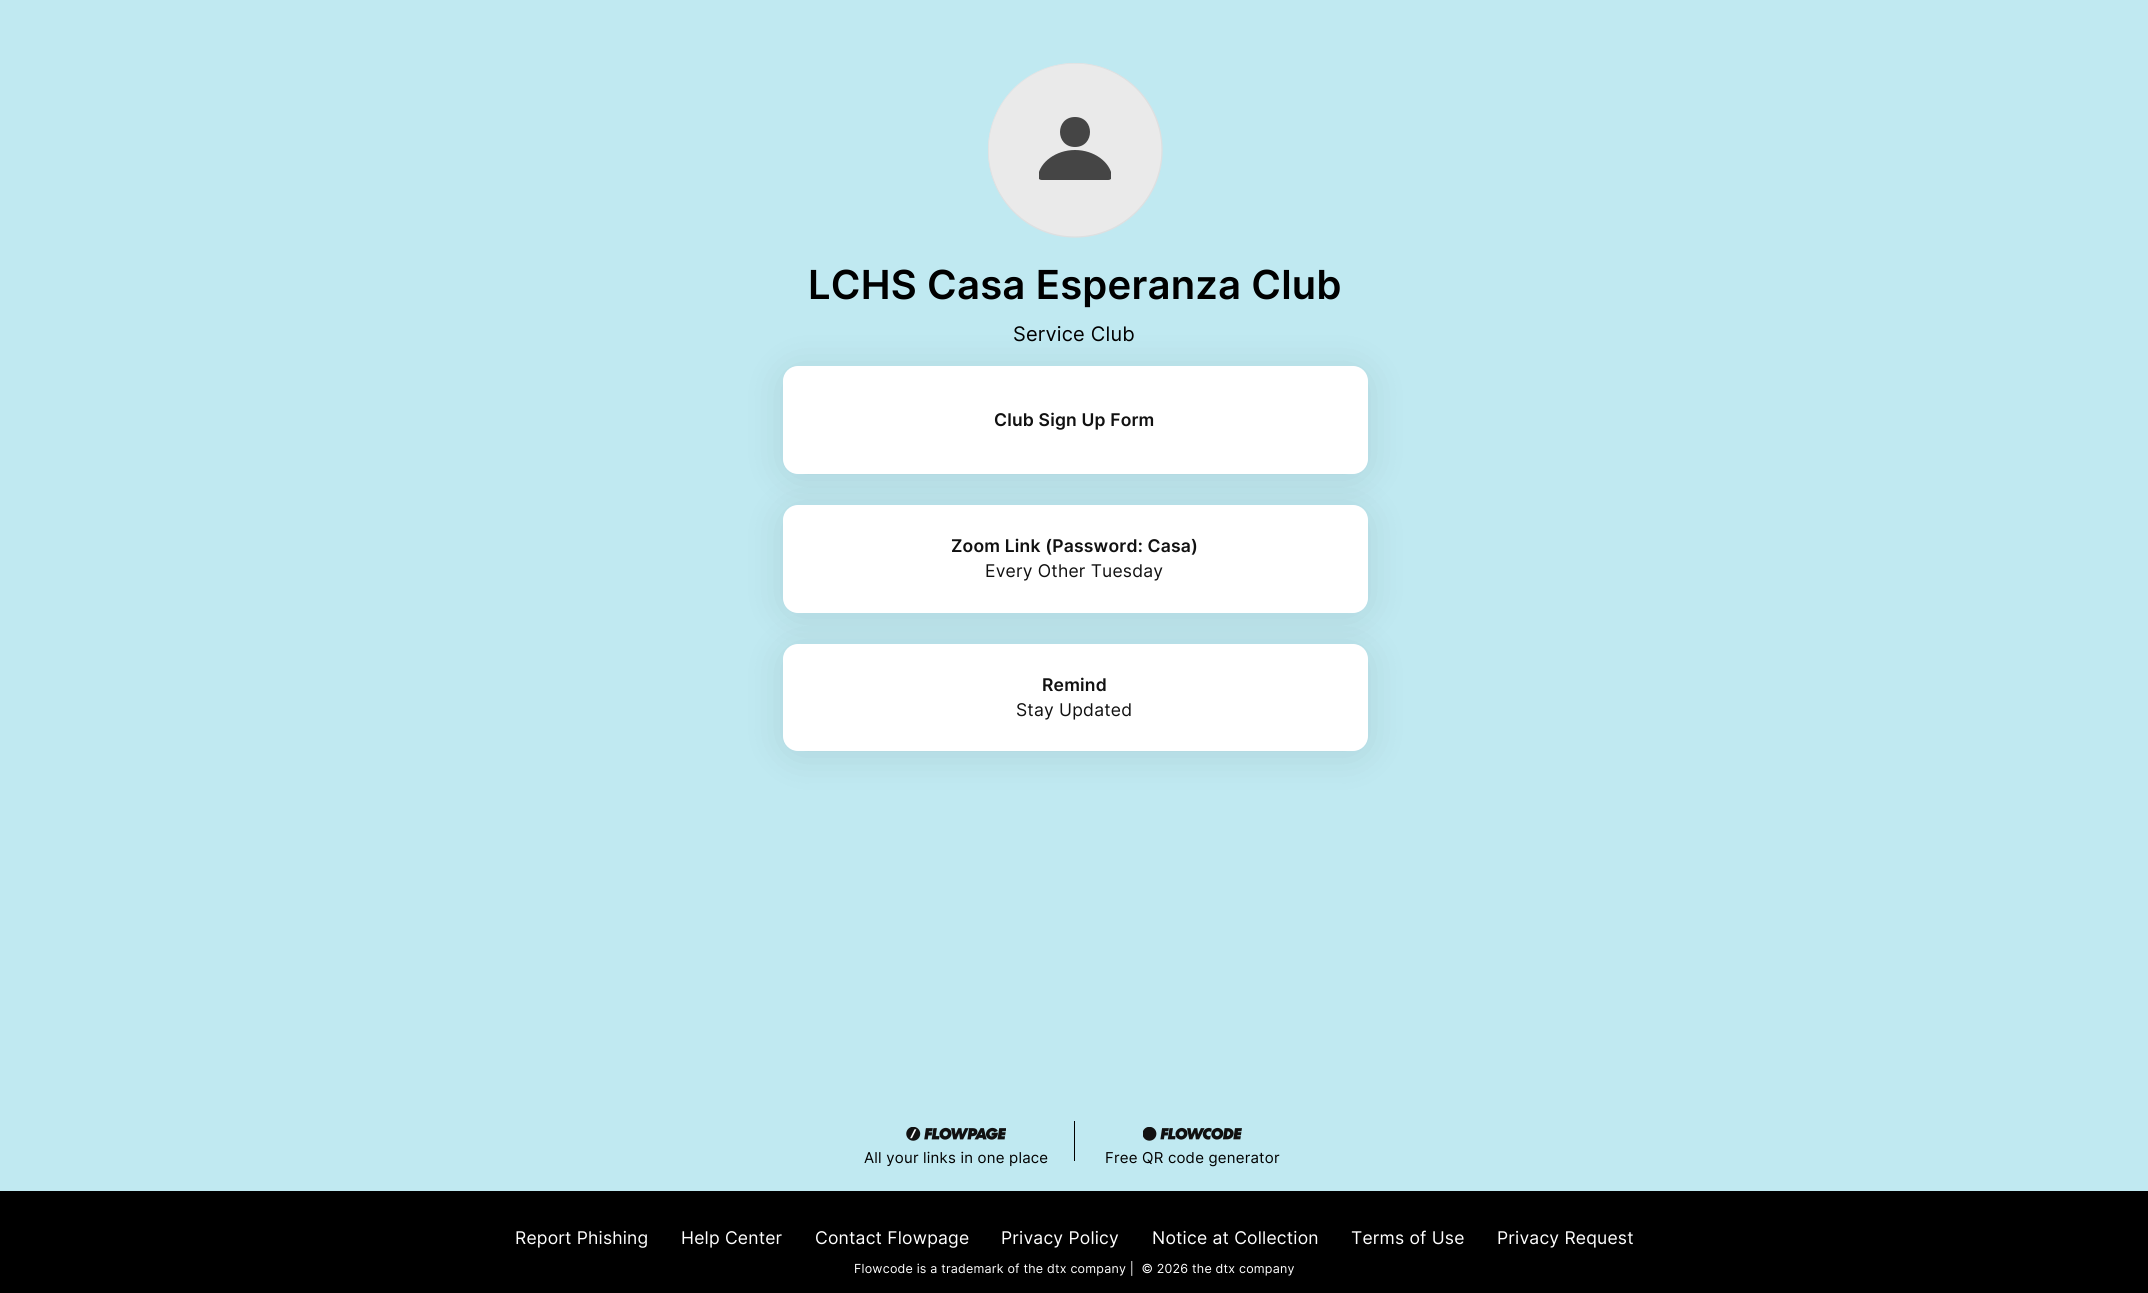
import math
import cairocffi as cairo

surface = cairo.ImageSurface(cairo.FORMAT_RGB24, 2148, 1293)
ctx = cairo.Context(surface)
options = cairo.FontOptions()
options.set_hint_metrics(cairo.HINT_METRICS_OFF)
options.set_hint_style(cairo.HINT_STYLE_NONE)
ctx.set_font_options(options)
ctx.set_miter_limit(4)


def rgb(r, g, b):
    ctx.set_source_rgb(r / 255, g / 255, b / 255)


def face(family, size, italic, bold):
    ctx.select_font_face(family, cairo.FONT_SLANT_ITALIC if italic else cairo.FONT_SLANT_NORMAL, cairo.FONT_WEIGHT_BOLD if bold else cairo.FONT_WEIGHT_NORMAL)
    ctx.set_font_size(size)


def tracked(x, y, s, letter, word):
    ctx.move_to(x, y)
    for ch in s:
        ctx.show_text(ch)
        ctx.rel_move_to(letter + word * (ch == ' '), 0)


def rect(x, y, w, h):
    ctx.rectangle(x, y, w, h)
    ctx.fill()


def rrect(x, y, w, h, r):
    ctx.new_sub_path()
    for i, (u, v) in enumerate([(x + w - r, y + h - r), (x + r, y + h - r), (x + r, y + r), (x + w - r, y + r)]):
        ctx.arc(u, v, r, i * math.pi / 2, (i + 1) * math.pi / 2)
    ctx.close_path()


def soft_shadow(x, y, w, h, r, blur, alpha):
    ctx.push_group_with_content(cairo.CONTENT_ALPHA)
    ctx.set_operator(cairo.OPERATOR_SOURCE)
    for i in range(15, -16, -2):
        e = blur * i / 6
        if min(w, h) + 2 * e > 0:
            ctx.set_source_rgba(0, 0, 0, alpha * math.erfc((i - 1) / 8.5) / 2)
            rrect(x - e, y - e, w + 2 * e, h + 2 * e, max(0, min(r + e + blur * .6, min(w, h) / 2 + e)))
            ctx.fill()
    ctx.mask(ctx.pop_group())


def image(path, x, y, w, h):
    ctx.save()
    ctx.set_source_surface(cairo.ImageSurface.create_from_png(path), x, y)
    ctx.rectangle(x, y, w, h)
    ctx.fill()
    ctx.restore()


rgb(192, 233, 241)
ctx.paint()
rgb(234, 234, 234)
ctx.new_path()
ctx.move_to(1162, 150)
ctx.curve_to(1162, 102, 1123, 63, 1075, 63)
ctx.curve_to(1027, 63, 988, 102, 988, 150)
ctx.curve_to(988, 198, 1027, 237, 1075, 237)
ctx.curve_to(1123, 237, 1162, 198, 1162, 150)
ctx.close_path()
ctx.fill()
ctx.save()
rrect(988, 63, 175, 175, 87.5)
ctx.clip()
ctx.arc(1075, 150, 87, 0, 2 * math.pi)
rgb(222, 223, 224)
ctx.set_line_width(1.3)
ctx.stroke()
ctx.restore()
ctx.save()
ctx.rectangle(1039, 114, 72, 72)
ctx.clip()
rgb(69, 69, 69)
ctx.set_fill_rule(cairo.FILL_RULE_EVEN_ODD)
ctx.new_path()
ctx.move_to(1075, 147)
ctx.curve_to(1095, 147, 1095, 117, 1075, 117)
ctx.curve_to(1055, 117, 1055, 147, 1075, 147)
ctx.close_path()
ctx.move_to(1038, 176)
ctx.curve_to(1040, 162, 1056, 150, 1075, 150)
ctx.curve_to(1094, 150, 1110, 162, 1112, 176)
ctx.curve_to(1112, 178, 1111, 180, 1108, 180)
ctx.line_to(1042, 180)
ctx.curve_to(1039, 180, 1038, 178, 1038, 176)
ctx.close_path()
ctx.fill()
ctx.restore()
face('Inter SemiBold', 40, 0, 0)
rgb(0, 0, 0)
tracked(808, 299, 'LCHS Casa Esperanza Club', 0.2, 0)
face('Inter', 20, 0, 0)
tracked(1013, 341, 'Service Club', 0.2, 0)
rgb(0, 0, 0)
soft_shadow(783, 370, 585, 108, 15, 19, 0.1)
rgb(255, 255, 255)
rrect(783, 366, 585, 108, 15)
ctx.fill()
face('Inter SemiBold', 17.5, 0, 0)
rgb(17, 17, 17)
tracked(994, 426, 'Club Sign Up Form', 0.2, 0)
rgb(0, 0, 0)
soft_shadow(783, 509, 585, 107, 15, 19, 0.1)
rgb(255, 255, 255)
rrect(783, 505, 585, 108, 15)
ctx.fill()
rgb(17, 17, 17)
tracked(951, 552, 'Zoom Link (Password: Casa)', 0.2, 0)
face('Inter', 17.5, 0, 0)
tracked(985, 577, 'Every Other Tuesday', 0.2, 0)
rgb(0, 0, 0)
soft_shadow(783, 648, 585, 107, 15, 19, 0.1)
rgb(255, 255, 255)
rrect(783, 644, 585, 107, 15)
ctx.fill()
face('Inter SemiBold', 17.5, 0, 0)
rgb(17, 17, 17)
tracked(1042, 691, 'Remind', 0.2, 0)
face('Inter', 17.5, 0, 0)
tracked(1016, 716, 'Stay Updated', 0.2, 0)
image('image0.png', 906, 1127, 100, 14)
face('Inter', 15, 0, 0)
rgb(0, 0, 0)
tracked(864, 1163, 'All your links in one place', 0.2, 0)
rect(1074, 1121, 1, 40)
image('image1.png', 1143, 1127, 99, 14)
tracked(1105, 1163, 'Free QR code generator', 0.2, 0)
rect(0, 1191, 2148, 102)
face('Inter', 17.5, 0, 0)
rgb(255, 255, 255)
tracked(515, 1244, 'Report Phishing', 0.2, 0)
tracked(681, 1244, 'Help Center', 0.2, 0)
tracked(815, 1244, 'Contact Flowpage', 0.2, 0)
tracked(1001, 1244, 'Privacy Policy', 0.2, 0)
tracked(1152, 1244, 'Notice at Collection', 0.2, 0)
tracked(1351, 1244, 'Terms of Use', 0.2, 0)
tracked(1497, 1244, 'Privacy Request', 0.2, 0)
face('Inter', 12.5, 0, 0)
tracked(854, 1273, 'Flowcode is a trademark of the dtx company |  © 2026 the dtx company', 0.2, 0)
surface.write_to_png('render.png')
